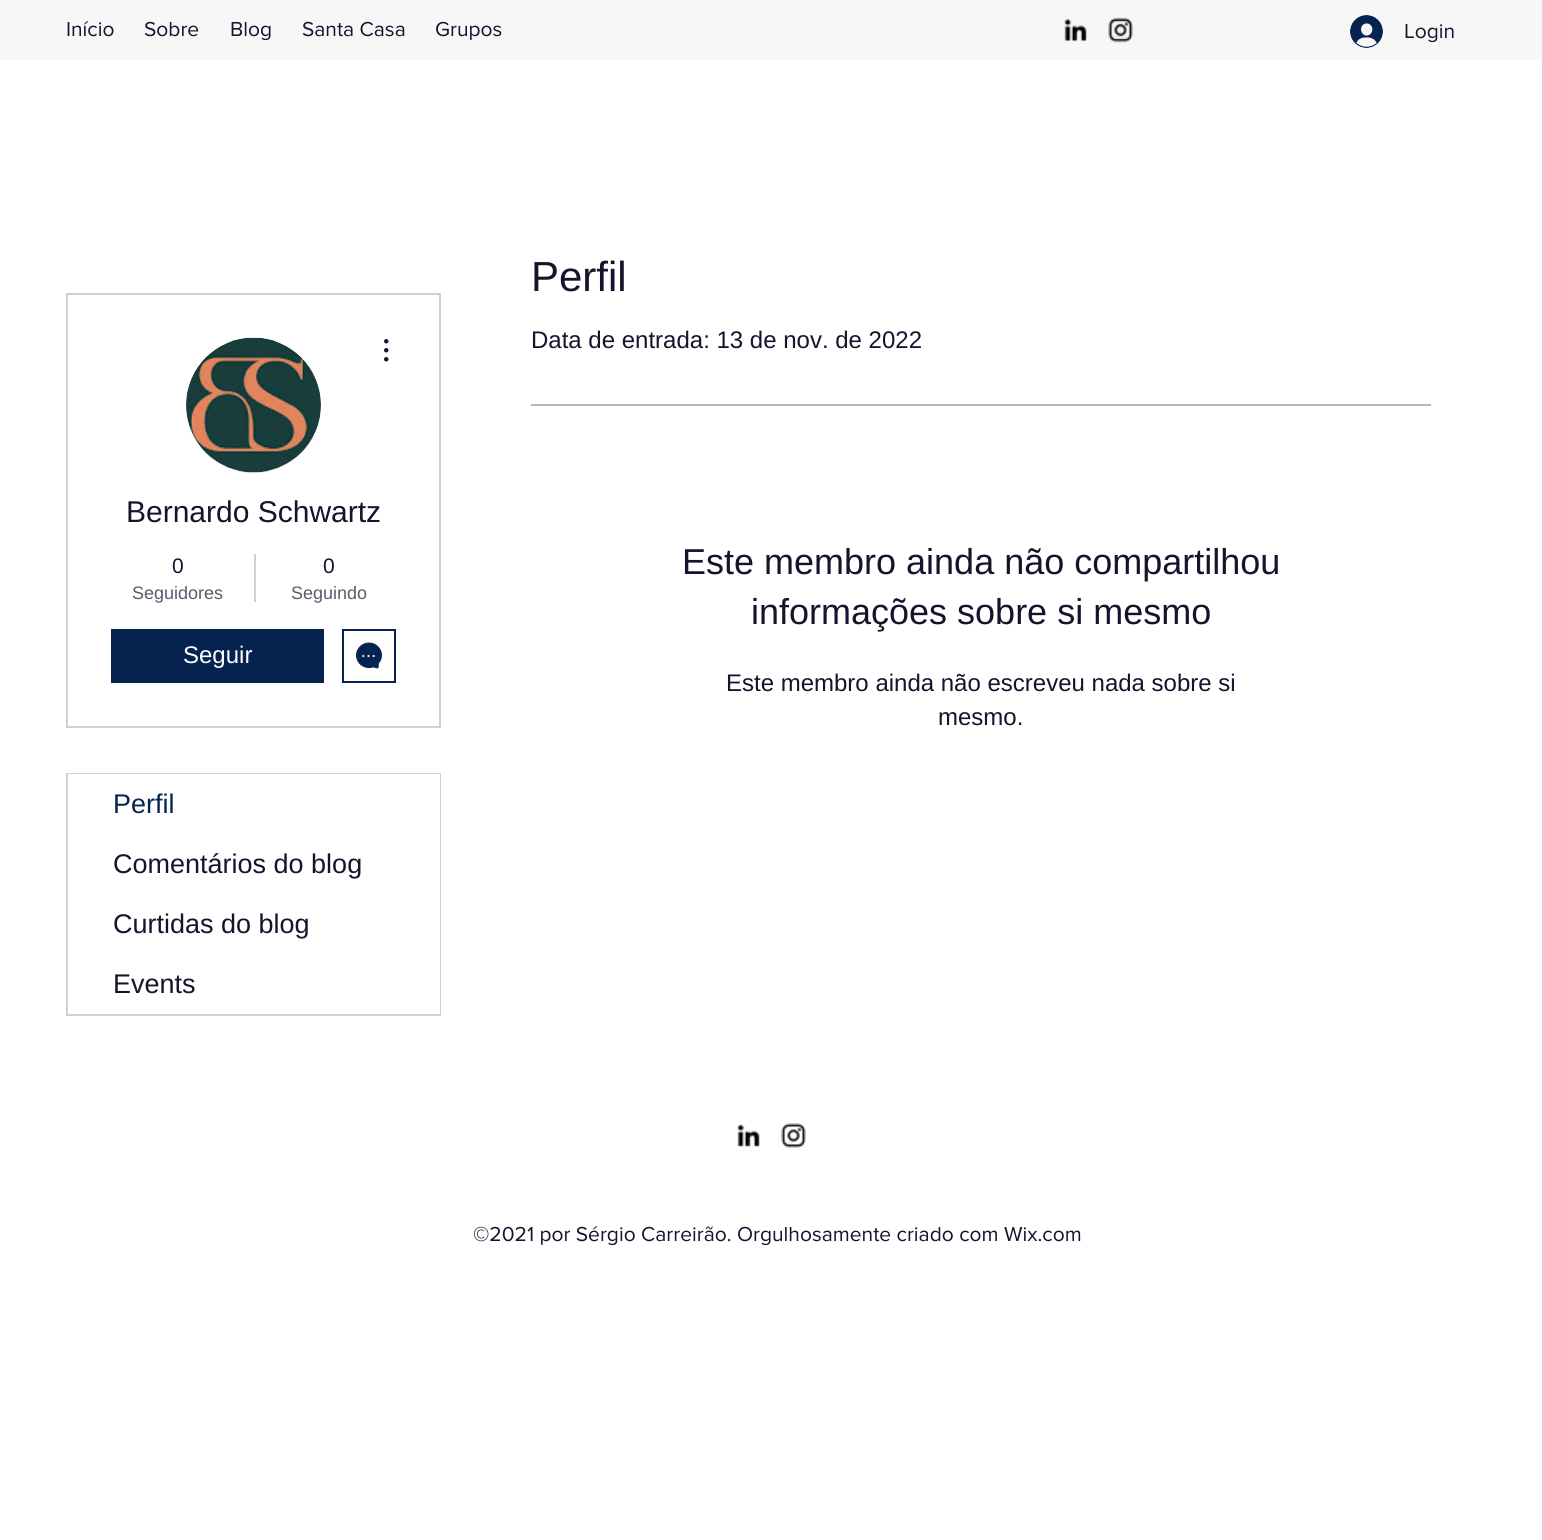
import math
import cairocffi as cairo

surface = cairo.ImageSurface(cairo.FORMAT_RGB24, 1542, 1540)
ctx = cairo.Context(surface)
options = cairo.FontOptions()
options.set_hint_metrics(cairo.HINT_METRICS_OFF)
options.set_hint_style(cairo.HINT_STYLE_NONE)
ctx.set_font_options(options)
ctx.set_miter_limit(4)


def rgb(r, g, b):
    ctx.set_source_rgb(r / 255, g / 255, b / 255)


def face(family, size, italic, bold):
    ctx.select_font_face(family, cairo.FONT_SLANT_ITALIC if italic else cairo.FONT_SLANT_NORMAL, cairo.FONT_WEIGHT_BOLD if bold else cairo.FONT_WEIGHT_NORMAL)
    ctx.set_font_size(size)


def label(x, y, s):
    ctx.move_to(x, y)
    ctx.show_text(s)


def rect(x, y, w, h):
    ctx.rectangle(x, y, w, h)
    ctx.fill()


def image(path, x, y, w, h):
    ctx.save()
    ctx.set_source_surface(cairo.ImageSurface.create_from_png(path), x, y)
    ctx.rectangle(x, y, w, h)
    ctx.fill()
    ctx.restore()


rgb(255, 255, 255)
ctx.paint()
rgb(247, 247, 247)
rect(0, 0, 1542, 60)
face('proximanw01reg', 21, 0, 0)
rgb(22, 19, 44)
label(66, 36, 'Início')
label(144, 36, 'Sobre')
label(230, 36, 'Blog')
label(302, 36, 'Santa Casa')
label(435, 36, 'Grupos')
image('image0.png', 1064, 19, 23, 23)
image('image1.png', 1108, 17, 25, 26)
image('image2.png', 1350, 15, 33, 33)
label(1404, 38, 'Login')
ctx.rectangle(67, 294, 373, 433)
rgb(208, 208, 213)
ctx.stroke()
rgb(216, 216, 216)
ctx.arc(253.5, 405.5, 67.5, 0, 2 * math.pi)
ctx.fill()
image('image3.png', 186, 337, 135, 136)
image('image4.png', 384, 339, 5, 23)
face('Liberation Sans', 30, 0, 0)
rgb(22, 19, 44)
label(126, 522, 'Bernardo Schwartz')
face('Liberation Sans', 21, 0, 0)
label(172, 573, '0')
face('Liberation Sans', 18, 0, 0)
rgb(92, 90, 107)
label(132, 599, 'Seguidores')
rgb(208, 208, 213)
rect(254, 554, 2, 48)
face('Liberation Sans', 21, 0, 0)
rgb(22, 19, 44)
label(323, 573, '0')
face('Liberation Sans', 18, 0, 0)
rgb(92, 90, 107)
label(291, 599, 'Seguindo')
rgb(6, 35, 79)
rect(111, 629, 213, 54)
face('Liberation Sans', 24, 0, 0)
rgb(255, 255, 255)
label(183, 663, 'Seguir')
ctx.rectangle(343, 630, 52, 52)
rgb(6, 35, 79)
ctx.stroke()
image('image5.png', 356, 642, 26, 27)
ctx.rectangle(67, 774, 373, 241)
rgb(208, 208, 213)
ctx.stroke()
rgb(255, 255, 255)
rect(68, 774, 372, 60)
face('Liberation Sans', 27, 0, 0)
rgb(6, 35, 79)
label(113, 813, 'Perfil')
rgb(255, 255, 255)
rect(439, 834, 1, 180)
rgb(22, 19, 44)
label(113, 873, 'Comentários do blog')
label(113, 933, 'Curtidas do blog')
label(113, 993, 'Events')
face('Liberation Sans', 42, 0, 0)
label(531, 291, 'Perfil')
face('Liberation Sans', 24, 0, 0)
label(531, 348, 'Data de entrada: 13 de nov. de 2022')
rgb(185, 184, 192)
rect(531, 404, 900, 2)
face('Liberation Sans', 36, 0, 0)
rgb(22, 19, 44)
label(682, 574, 'Este membro ainda não compartilhou')
label(751, 624, 'informações sobre si mesmo')
face('Liberation Sans', 24, 0, 0)
label(726, 691, 'Este membro ainda não escreveu nada sobre si')
label(938, 725, 'mesmo.')
image('image6.png', 737, 1124, 23, 23)
image('image7.png', 781, 1123, 25, 25)
face('proximanw01reg', 21, 0, 0)
label(473, 1241, '©2021 por Sérgio Carreirão. Orgulhosamente criado com Wix.com')
surface.write_to_png('render.png')
